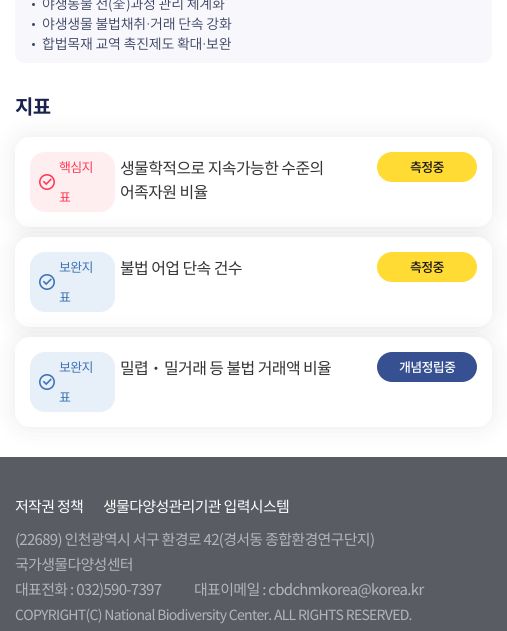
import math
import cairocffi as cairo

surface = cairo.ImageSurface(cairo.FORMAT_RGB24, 507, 631)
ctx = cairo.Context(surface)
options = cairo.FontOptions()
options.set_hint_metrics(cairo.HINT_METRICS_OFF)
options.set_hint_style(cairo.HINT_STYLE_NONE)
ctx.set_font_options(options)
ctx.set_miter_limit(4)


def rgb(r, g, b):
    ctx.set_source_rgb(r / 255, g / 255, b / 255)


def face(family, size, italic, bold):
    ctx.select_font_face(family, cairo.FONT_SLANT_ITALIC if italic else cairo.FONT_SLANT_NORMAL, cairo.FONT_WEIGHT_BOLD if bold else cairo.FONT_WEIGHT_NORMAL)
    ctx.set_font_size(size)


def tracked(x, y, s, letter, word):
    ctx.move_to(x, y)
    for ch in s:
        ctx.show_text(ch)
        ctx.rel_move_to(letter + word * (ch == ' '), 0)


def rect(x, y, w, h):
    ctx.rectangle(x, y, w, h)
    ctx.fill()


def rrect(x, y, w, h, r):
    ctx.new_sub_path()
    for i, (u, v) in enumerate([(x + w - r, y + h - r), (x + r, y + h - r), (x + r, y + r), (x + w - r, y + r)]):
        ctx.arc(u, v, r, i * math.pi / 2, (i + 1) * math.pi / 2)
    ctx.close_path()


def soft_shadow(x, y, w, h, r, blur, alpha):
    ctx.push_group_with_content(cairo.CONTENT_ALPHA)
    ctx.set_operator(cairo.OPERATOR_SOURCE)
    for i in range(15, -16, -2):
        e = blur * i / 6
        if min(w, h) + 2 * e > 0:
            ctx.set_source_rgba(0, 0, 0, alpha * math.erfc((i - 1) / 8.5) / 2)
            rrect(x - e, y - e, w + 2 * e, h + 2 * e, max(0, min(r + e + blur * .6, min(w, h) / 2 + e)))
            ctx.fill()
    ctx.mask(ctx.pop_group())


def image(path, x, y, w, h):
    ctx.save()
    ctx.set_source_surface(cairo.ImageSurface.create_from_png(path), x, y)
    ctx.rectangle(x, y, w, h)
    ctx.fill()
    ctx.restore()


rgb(255, 255, 255)
ctx.paint()
rgb(247, 247, 252)
rrect(15, -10, 477, 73, 10)
ctx.fill()
rgb(62, 70, 101)
ctx.arc(33.5, 4.5, 1.5, 0, 2 * math.pi)
ctx.fill()
face('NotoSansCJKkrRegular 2', 14, 0, 0)
rgb(57, 66, 97)
tracked(42, 9, '야생동물 전(', -0.25, 0)
face('Dotum', 14, 0, 0)
tracked(112, 9, '全', -0.25, 0)
face('NotoSansCJKkrRegular 2', 14, 0, 0)
tracked(126, 9, ')과정 관리 체계화', -0.25, 0)
rgb(62, 70, 101)
ctx.new_path()
ctx.arc(33.5, 24.5, 1.5, 0, 2 * math.pi)
ctx.fill()
rgb(57, 66, 97)
tracked(42, 29, '야생생물 불법채취', -0.25, 0)
face('Dotum', 14, 0, 0)
tracked(146, 29, '·', -0.25, 0)
face('NotoSansCJKkrRegular 2', 14, 0, 0)
tracked(150, 29, '거래 단속 강화', -0.25, 0)
rgb(62, 70, 101)
ctx.new_path()
ctx.arc(33.5, 44.5, 1.5, 0, 2 * math.pi)
ctx.fill()
rgb(57, 66, 97)
tracked(42, 49, '합법목재 교역 촉진제도 확대', -0.25, 0)
face('Dotum', 14, 0, 0)
tracked(202, 49, '·', -0.25, 0)
face('NotoSansCJKkrRegular 2', 14, 0, 0)
tracked(206, 49, '보완', -0.25, 0)
face('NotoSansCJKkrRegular', 20, 0, 0)
rgb(27, 34, 78)
tracked(15, 114, '지표', -0.7, 0)
rgb(102, 102, 102)
soft_shadow(15, 137, 477, 90, 15, 12, 0.15)
rgb(255, 255, 255)
rrect(15, 137, 477, 90, 15)
ctx.fill()
rgb(255, 238, 240)
rrect(30, 152, 85, 60, 15)
ctx.fill()
image('image0.png', 39, 174, 16, 16)
face('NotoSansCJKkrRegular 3', 13, 0, 0)
rgb(255, 58, 86)
tracked(59, 172, '핵심지', -0.7, 0)
tracked(59, 202, '표', -0.7, 0)
face('NotoSansCJKkrRegular 3', 16, 0, 0)
rgb(51, 51, 51)
tracked(120, 174, '생물학적으로 지속가능한 수준의', -0.6, 0)
tracked(120, 198, '어족자원 비율', -0.6, 0)
rgb(255, 219, 51)
rrect(377, 152, 100, 30, 15)
ctx.fill()
face('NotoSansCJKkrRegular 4', 13, 0, 0)
rgb(21, 21, 21)
tracked(410, 172, '측정중', -0.7, 0)
rgb(102, 102, 102)
soft_shadow(15, 237, 477, 90, 15, 12, 0.15)
rgb(255, 255, 255)
rrect(15, 237, 477, 90, 15)
ctx.fill()
rgb(231, 239, 248)
rrect(30, 252, 85, 60, 15)
ctx.fill()
image('image1.png', 39, 274, 16, 16)
face('NotoSansCJKkrRegular 3', 13, 0, 0)
rgb(62, 115, 181)
tracked(59, 272, '보완지', -0.7, 0)
tracked(59, 302, '표', -0.7, 0)
face('NotoSansCJKkrRegular 3', 16, 0, 0)
rgb(51, 51, 51)
tracked(120, 274, '불법 어업 단속 건수', -0.6, 0)
rgb(255, 219, 51)
rrect(377, 252, 100, 30, 15)
ctx.fill()
face('NotoSansCJKkrRegular 4', 13, 0, 0)
rgb(21, 21, 21)
tracked(410, 272, '측정중', -0.7, 0)
rgb(102, 102, 102)
soft_shadow(15, 337, 477, 90, 15, 12, 0.15)
rgb(255, 255, 255)
rrect(15, 337, 477, 90, 15)
ctx.fill()
rgb(231, 239, 248)
rrect(30, 352, 85, 60, 15)
ctx.fill()
image('image1.png', 39, 374, 16, 16)
face('NotoSansCJKkrRegular 3', 13, 0, 0)
rgb(62, 115, 181)
tracked(59, 372, '보완지', -0.7, 0)
tracked(59, 402, '표', -0.7, 0)
face('NotoSansCJKkrRegular 3', 16, 0, 0)
rgb(51, 51, 51)
tracked(120, 374, '밀렵', -0.6, 0)
face('Dotum', 16, 0, 0)
tracked(148, 374, 'ㆍ', -0.6, 0)
face('NotoSansCJKkrRegular 3', 16, 0, 0)
tracked(164, 374, '밀거래 등 불법 거래액 비율', -0.6, 0)
rgb(54, 80, 145)
rrect(377, 352, 100, 30, 15)
ctx.fill()
face('NotoSansCJKkrRegular 4', 13, 0, 0)
rgb(255, 255, 255)
tracked(399, 372, '개념정립중', -0.7, 0)
rgb(89, 92, 99)
rect(0, 457, 507, 174)
face('NotoSansCJKkrRegular 3', 15, 0, 0)
rgb(255, 255, 255)
tracked(15, 512, '저작권 정책', -0.7, 0)
tracked(103, 512, '생물다양성관리기관 입력시스템', -0.7, 0)
rgb(178, 181, 188)
tracked(15, 545, '(22689) 인천광역시 서구 환경로 42(경서동 종합환경연구단지)', -0.7, 0)
tracked(15, 570, '국가생물다양성센터', -0.7, 0)
tracked(15, 595, '대표전화 : 032)590-7397', -0.7, 0)
tracked(194, 595, '대표이메일 : cbdchmkorea@korea.kr', -0.7, 0)
face('NotoSansCJKkrRegular 3', 14, 0, 0)
tracked(15, 620, 'COPYRIGHT(C) National Biodiversity Center. ALL RIGHTS RESERVED.', -0.7, 0)
surface.write_to_png('render.png')
